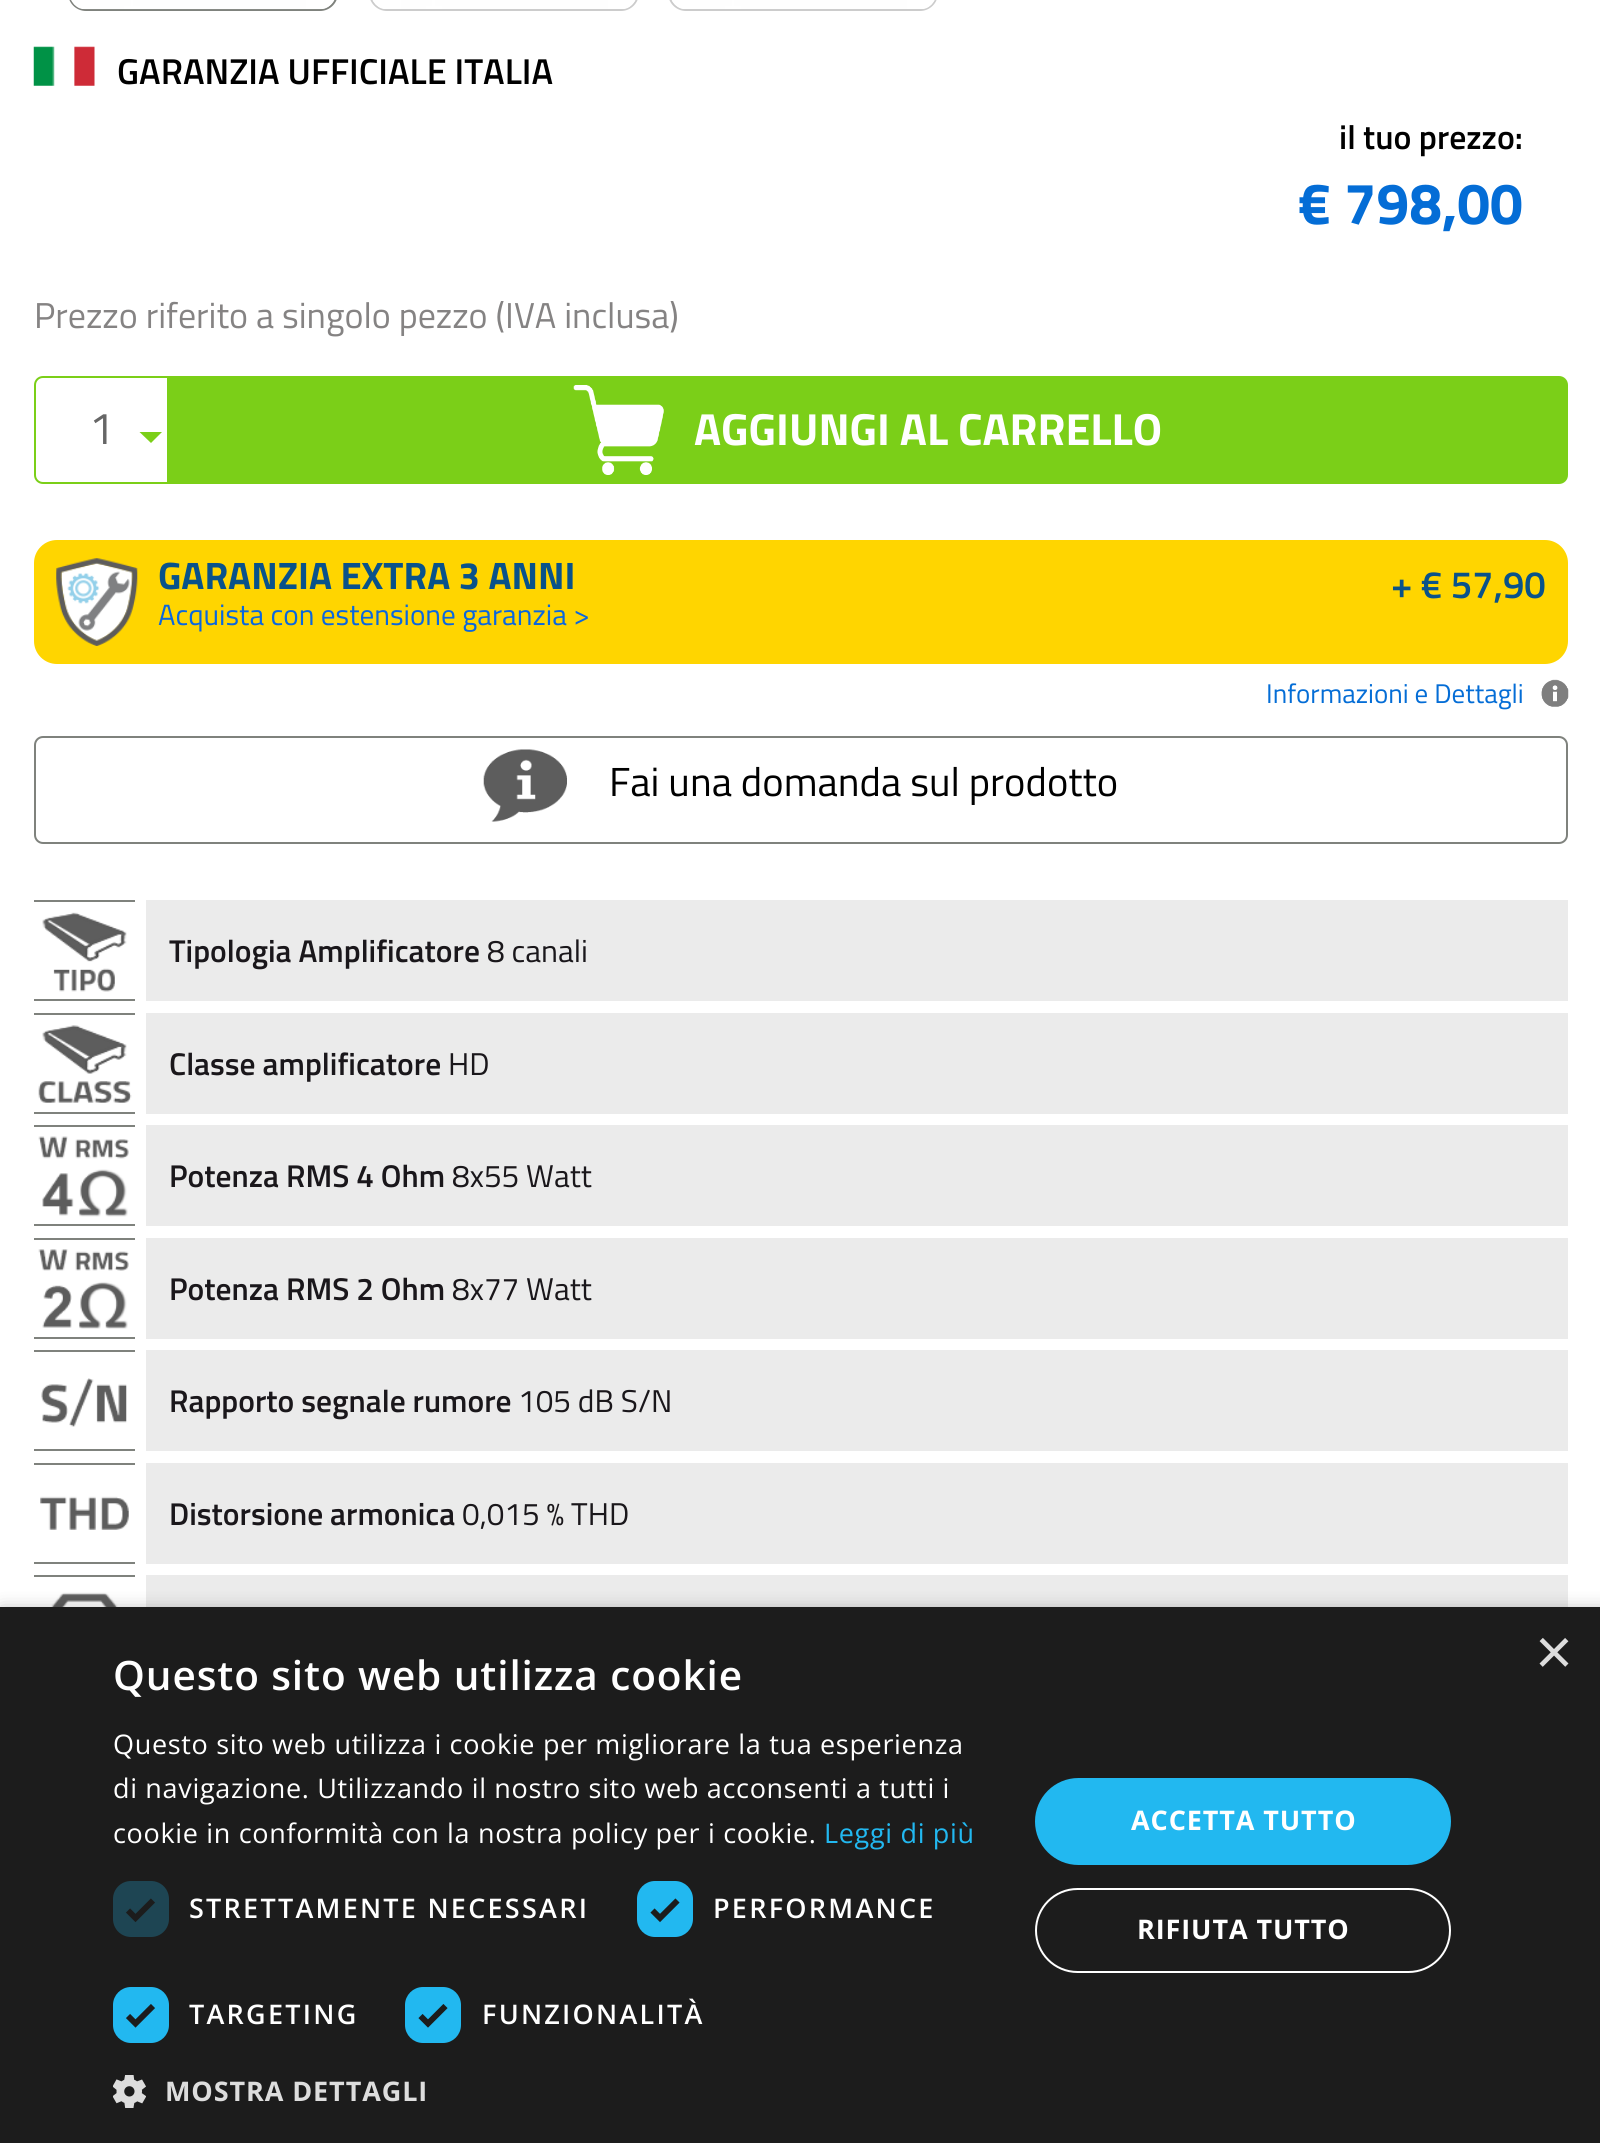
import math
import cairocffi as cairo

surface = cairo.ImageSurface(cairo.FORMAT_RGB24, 1600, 2143)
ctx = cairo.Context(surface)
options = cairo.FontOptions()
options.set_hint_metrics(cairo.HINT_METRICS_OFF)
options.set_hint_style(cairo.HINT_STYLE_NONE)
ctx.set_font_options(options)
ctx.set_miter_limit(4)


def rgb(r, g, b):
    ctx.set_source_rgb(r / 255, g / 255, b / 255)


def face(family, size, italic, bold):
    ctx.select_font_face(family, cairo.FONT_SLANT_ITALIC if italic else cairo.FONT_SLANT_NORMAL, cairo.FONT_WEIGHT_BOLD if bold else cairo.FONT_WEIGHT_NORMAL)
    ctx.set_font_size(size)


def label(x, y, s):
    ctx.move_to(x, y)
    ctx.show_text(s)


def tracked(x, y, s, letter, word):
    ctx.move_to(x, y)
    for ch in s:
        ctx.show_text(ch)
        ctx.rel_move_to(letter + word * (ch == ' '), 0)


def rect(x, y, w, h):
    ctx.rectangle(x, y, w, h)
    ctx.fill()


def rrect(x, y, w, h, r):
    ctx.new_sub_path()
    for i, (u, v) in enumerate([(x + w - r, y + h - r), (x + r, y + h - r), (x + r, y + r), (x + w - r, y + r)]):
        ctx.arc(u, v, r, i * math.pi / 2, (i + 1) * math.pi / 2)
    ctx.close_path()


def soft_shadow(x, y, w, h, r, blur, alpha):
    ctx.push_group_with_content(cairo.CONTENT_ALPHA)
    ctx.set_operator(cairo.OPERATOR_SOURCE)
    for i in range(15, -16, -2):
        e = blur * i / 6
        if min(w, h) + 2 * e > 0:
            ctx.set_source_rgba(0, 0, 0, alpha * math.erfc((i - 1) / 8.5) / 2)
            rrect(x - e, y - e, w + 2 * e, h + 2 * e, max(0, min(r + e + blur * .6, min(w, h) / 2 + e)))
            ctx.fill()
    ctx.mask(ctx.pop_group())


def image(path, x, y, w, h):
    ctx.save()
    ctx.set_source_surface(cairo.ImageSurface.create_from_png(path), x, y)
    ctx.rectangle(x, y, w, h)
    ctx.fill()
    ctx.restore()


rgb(255, 255, 255)
ctx.paint()
rrect(69, -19, 268, 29, 17)
rgb(127, 130, 125)
ctx.stroke()
image('image0.png', 71, 0, 263, 10)
rrect(370, -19, 268, 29, 17)
rgb(204, 204, 204)
ctx.stroke()
image('image1.png', 372, 0, 264, 9)
rrect(669, -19, 268, 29, 17)
ctx.stroke()
image('image2.png', 672, 0, 263, 9)
image('image3.png', 33, 46, 62, 40)
face('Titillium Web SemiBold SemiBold', 36, 0, 0)
rgb(0, 0, 0)
label(117, 84, 'GARANZIA UFFICIALE ITALIA')
face('Titillium Web SemiBold SemiBold', 33.75, 0, 0)
label(1339, 149, 'il tuo prezzo:')
face('Titillium Web', 58.5, 0, 1)
rgb(4, 109, 214)
label(1298, 224, '€ 798,00')
face('Titillium Web', 36, 0, 0)
rgb(133, 131, 131)
label(34, 328, 'Prezzo riferito a singolo pezzo (IVA inclusa)')
ctx.new_path()
ctx.move_to(43, 377)
ctx.line_to(168, 377)
ctx.line_to(168, 483)
ctx.line_to(43, 483)
ctx.curve_to(38.5, 483, 35, 479.5, 35, 475)
ctx.line_to(35, 385)
ctx.curve_to(35, 380.5, 38.5, 377, 43, 377)
ctx.close_path()
rgb(123, 207, 24)
ctx.stroke()
face('Titillium Web', 45, 0, 0)
rgb(102, 102, 102)
label(89, 444, '1')
rgb(123, 207, 24)
ctx.new_path()
ctx.move_to(139.5, 432)
ctx.line_to(162, 432)
ctx.line_to(151, 443)
ctx.close_path()
ctx.fill()
ctx.new_path()
ctx.move_to(169, 376)
ctx.line_to(1559, 376)
ctx.curve_to(1564, 376, 1568, 380, 1568, 385)
ctx.line_to(1568, 475)
ctx.curve_to(1568, 480, 1564, 484, 1559, 484)
ctx.line_to(169, 484)
ctx.close_path()
ctx.fill()
image('image4.png', 573, 385, 91, 90)
face('Titillium Web', 45, 0, 1)
rgb(255, 255, 255)
label(694, 445, 'AGGIUNGI AL CARRELLO')
rgb(255, 213, 0)
rrect(34, 540, 1534, 124, 23)
ctx.fill()
image('image5.png', 56, 558, 82, 88)
face('Titillium Web', 38.25, 0, 1)
rgb(9, 82, 138)
label(158, 589, 'GARANZIA EXTRA 3 ANNI')
face('Titillium Web', 29.25, 0, 0)
rgb(10, 103, 223)
label(158, 625, 'Acquista con estensione garanzia >')
face('Titillium Web SemiBold SemiBold', 38.25, 0, 0)
rgb(9, 82, 138)
label(1391, 598, '+ € 57,90')
image('image6.png', 1541, 679, 28, 28)
face('Titillium Web', 27, 0, 0)
rgb(4, 109, 214)
label(1266, 703, 'Informazioni e Dettagli')
rrect(35, 737, 1532, 106, 8)
rgb(127, 130, 125)
ctx.stroke()
image('image7.png', 483, 749, 84, 73)
face('Titillium Web', 40.5, 0, 0)
rgb(0, 0, 0)
label(609, 796, 'Fai una domanda sul prodotto')
image('image8.png', 42, 912, 85, 80)
rgb(127, 130, 125)
rect(34, 900, 101, 2)
rect(34, 999, 101, 2)
rgb(235, 235, 235)
rect(146, 900, 1422, 101)
face('Titillium Web SemiBold SemiBold', 31.5, 0, 0)
rgb(26, 23, 27)
label(169, 962, 'Tipologia Amplificatore')
face('Titillium Web', 31.5, 0, 0)
label(487, 962, '8 canali')
image('image9.png', 38, 1025, 94, 78)
rgb(127, 130, 125)
rect(34, 1013, 101, 2)
rect(34, 1112, 101, 2)
rgb(235, 235, 235)
rect(146, 1013, 1422, 101)
face('Titillium Web SemiBold SemiBold', 31.5, 0, 0)
rgb(26, 23, 27)
label(169, 1075, 'Classe amplificatore')
face('Titillium Web', 31.5, 0, 0)
label(448, 1075, 'HD')
image('image10.png', 38, 1136, 91, 81)
rgb(127, 130, 125)
rect(34, 1125, 101, 2)
rect(34, 1224, 101, 2)
rgb(235, 235, 235)
rect(146, 1125, 1422, 101)
face('Titillium Web SemiBold SemiBold', 31.5, 0, 0)
rgb(26, 23, 27)
label(169, 1187, 'Potenza RMS 4 Ohm')
face('Titillium Web', 31.5, 0, 0)
label(452, 1187, '8x55 Watt')
image('image11.png', 38, 1249, 91, 80)
rgb(127, 130, 125)
rect(34, 1238, 101, 2)
rect(34, 1337, 101, 2)
rgb(235, 235, 235)
rect(146, 1238, 1422, 101)
face('Titillium Web SemiBold SemiBold', 31.5, 0, 0)
rgb(26, 23, 27)
label(169, 1300, 'Potenza RMS 2 Ohm')
face('Titillium Web', 31.5, 0, 0)
label(452, 1300, '8x77 Watt')
image('image12.png', 41, 1378, 86, 49)
rgb(127, 130, 125)
rect(34, 1350, 101, 2)
rect(34, 1449, 101, 2)
rgb(235, 235, 235)
rect(146, 1350, 1422, 101)
face('Titillium Web SemiBold SemiBold', 31.5, 0, 0)
rgb(26, 23, 27)
label(169, 1412, 'Rapporto segnale rumore')
face('Titillium Web', 31.5, 0, 0)
label(518, 1412, '105 dB S/N')
image('image13.png', 40, 1496, 89, 34)
rgb(127, 130, 125)
rect(34, 1463, 101, 2)
rect(34, 1562, 101, 2)
rgb(235, 235, 235)
rect(146, 1463, 1422, 101)
face('Titillium Web SemiBold SemiBold', 31.5, 0, 0)
rgb(26, 23, 27)
label(169, 1525, 'Distorsione armonica')
face('Titillium Web', 31.5, 0, 0)
label(462, 1525, '0,015 % THD')
image('image14.png', 43, 1592, 82, 15)
rgb(127, 130, 125)
rect(34, 1575, 101, 2)
rgb(235, 235, 235)
rect(146, 1575, 1422, 32)
rgb(0, 0, 0)
soft_shadow(2, 1611, 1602, 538, 0, 9, 0.35)
rgb(28, 28, 28)
rect(0, 1607, 1600, 536)
face('Liberation Sans', 65, 0, 0)
rgb(221, 221, 221)
label(1535, 1674, '×')
face('Open Sans SemiBold', 40.5, 0, 0)
rgb(255, 255, 255)
tracked(113, 1690, 'Questo sito web utilizza cookie', 0.9, 0)
face('Open Sans', 27, 0, 0)
tracked(113, 1754, 'Questo sito web utilizza i cookie per migliorare la tua esperienza', 0.67, 0)
tracked(113, 1798, 'di navigazione. Utilizzando il nostro sito web acconsenti a tutti i', 0.67, 0)
tracked(113, 1843, 'cookie in conformità con la nostra policy per i cookie.', 0.67, 0)
rgb(34, 184, 240)
tracked(824, 1843, 'Leggi di più', 0.67, 0)
rgb(30, 69, 83)
rrect(113, 1881, 56, 56, 18)
ctx.fill()
ctx.new_path()
ctx.move_to(128, 1910.5)
ctx.line_to(135.5, 1918)
ctx.line_to(153, 1900.5)
rgb(28, 28, 28)
ctx.set_line_width(5.9)
ctx.stroke()
face('Open Sans SemiBold', 27, 0, 0)
rgb(255, 255, 255)
tracked(189, 1918, 'STRETTAMENTE NECESSARI', 2.25, 0)
rgb(34, 184, 240)
rrect(639.5, 1883.5, 51, 51, 15.5)
ctx.fill_preserve()
ctx.set_line_width(5)
ctx.stroke()
ctx.new_path()
ctx.move_to(652.5, 1910.5)
ctx.line_to(660, 1918)
ctx.line_to(677.5, 1900.5)
rgb(28, 28, 28)
ctx.set_line_width(5.9)
ctx.stroke()
rgb(255, 255, 255)
tracked(713, 1918, 'PERFORMANCE', 2.25, 0)
rgb(34, 184, 240)
rrect(115.5, 1989.5, 51, 51, 15.5)
ctx.fill_preserve()
ctx.set_line_width(5)
ctx.stroke()
ctx.new_path()
ctx.move_to(128, 2016)
ctx.line_to(135.5, 2023.5)
ctx.line_to(153, 2006)
rgb(28, 28, 28)
ctx.set_line_width(5.9)
ctx.stroke()
rgb(255, 255, 255)
tracked(189, 2024, 'TARGETING', 2.25, 0)
rgb(34, 184, 240)
rrect(407.5, 1989.5, 51, 51, 15.5)
ctx.fill_preserve()
ctx.set_line_width(5)
ctx.stroke()
ctx.new_path()
ctx.move_to(420.5, 2016)
ctx.line_to(428, 2023.5)
ctx.line_to(445.5, 2006)
rgb(28, 28, 28)
ctx.set_line_width(5.9)
ctx.stroke()
rgb(255, 255, 255)
tracked(482, 2024, 'FUNZIONALITÀ', 2.25, 0)
image('image15.png', 113, 2075, 33, 33)
face('Open Sans', 27, 0, 1)
rgb(221, 221, 221)
tracked(165, 2101, 'MOSTRA DETTAGLI', 0.9, 0)
rgb(34, 184, 240)
rrect(1035, 1778, 416, 87, 43.5)
ctx.fill()
rgb(255, 255, 255)
tracked(1131, 1830, 'ACCETTA TUTTO', 0.9, 0)
rrect(1036, 1889, 414, 83, 41.5)
ctx.set_line_width(2)
ctx.stroke()
tracked(1137, 1939, 'RIFIUTA TUTTO', 0.9, 0)
surface.write_to_png('render.png')
